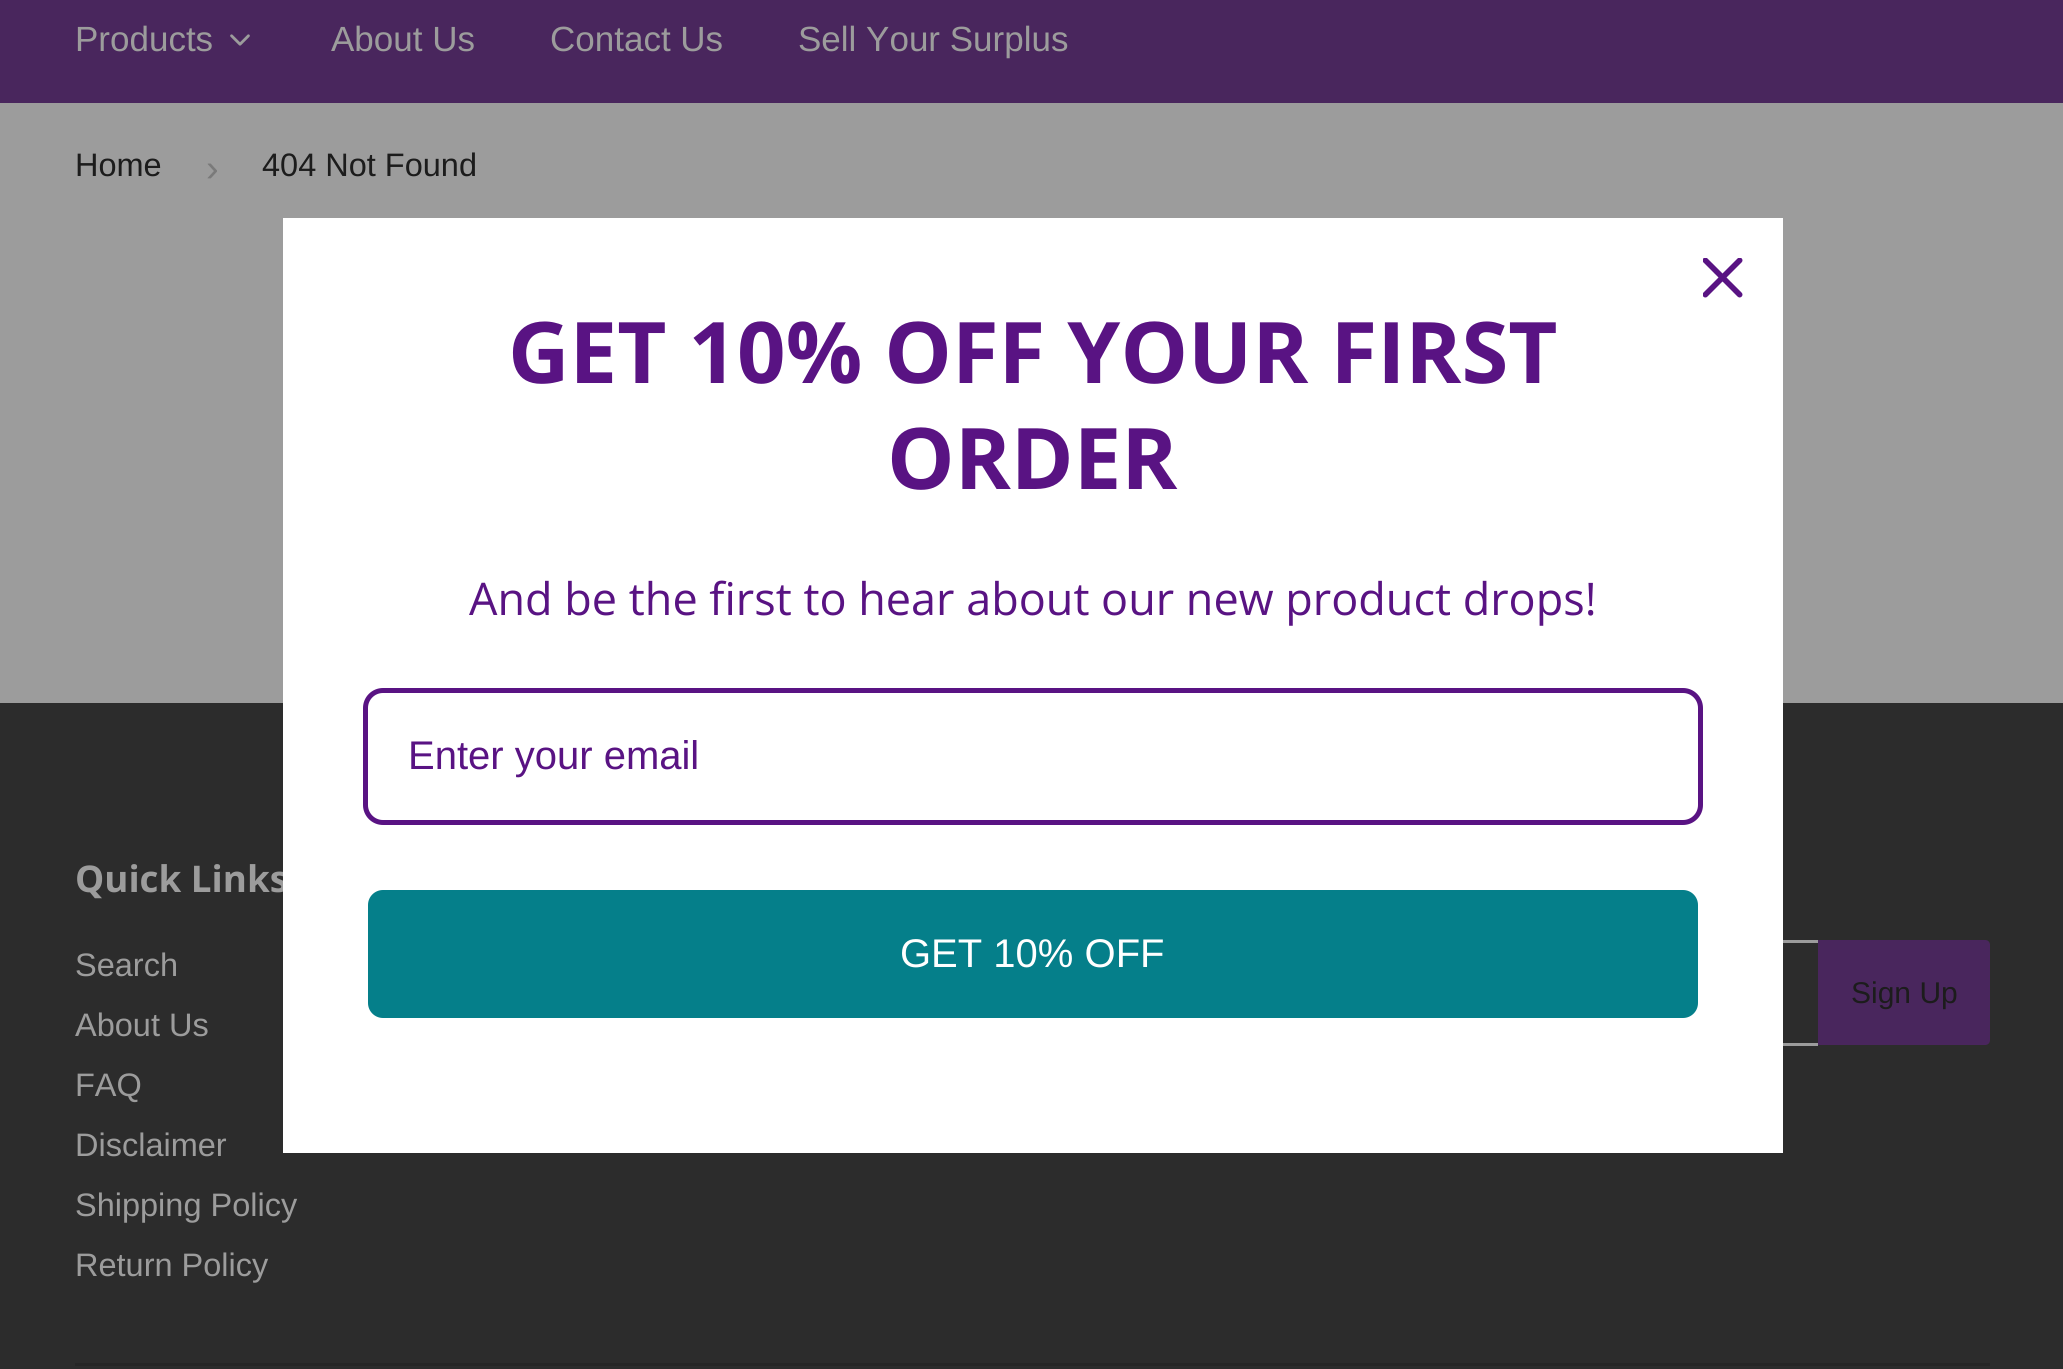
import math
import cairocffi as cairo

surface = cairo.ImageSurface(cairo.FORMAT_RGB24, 2063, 1369)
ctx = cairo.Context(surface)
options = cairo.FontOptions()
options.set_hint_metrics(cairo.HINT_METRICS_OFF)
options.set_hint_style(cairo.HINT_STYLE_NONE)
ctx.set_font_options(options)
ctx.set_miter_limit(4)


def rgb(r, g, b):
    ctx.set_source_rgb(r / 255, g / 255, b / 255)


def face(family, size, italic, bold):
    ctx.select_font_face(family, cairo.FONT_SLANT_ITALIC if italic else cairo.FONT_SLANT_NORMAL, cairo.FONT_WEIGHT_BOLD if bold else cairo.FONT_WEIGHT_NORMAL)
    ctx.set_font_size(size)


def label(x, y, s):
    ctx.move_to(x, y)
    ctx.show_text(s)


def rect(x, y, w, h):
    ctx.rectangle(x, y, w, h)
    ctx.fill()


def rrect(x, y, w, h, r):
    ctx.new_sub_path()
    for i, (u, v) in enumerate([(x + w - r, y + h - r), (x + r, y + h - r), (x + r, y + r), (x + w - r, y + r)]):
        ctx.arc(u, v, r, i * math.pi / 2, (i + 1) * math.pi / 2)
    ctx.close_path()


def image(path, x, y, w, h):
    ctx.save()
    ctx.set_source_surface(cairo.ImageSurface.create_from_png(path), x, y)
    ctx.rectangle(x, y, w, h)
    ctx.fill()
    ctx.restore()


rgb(156, 156, 156)
ctx.paint()
rgb(73, 38, 93)
rect(0, 0, 2063, 103)
face('Liberation Sans', 35, 0, 0)
rgb(156, 156, 156)
label(75, 51, 'Products')
image('image0.png', 230, 34, 20, 12)
label(331, 51, 'About Us')
label(550, 51, 'Contact Us')
label(798, 51, 'Sell Your Surplus')
face('Liberation Sans', 32.5, 0, 0)
rgb(28, 28, 28)
label(75, 176, 'Home')
face('Liberation Sans', 38, 0, 0)
rgb(122, 122, 122)
label(206, 181, '›')
face('Liberation Sans', 32.5, 0, 0)
rgb(28, 28, 28)
label(262, 176, '404 Not Found')
rgb(44, 44, 44)
rect(0, 703, 2063, 666)
face('Open Sans', 36.75, 0, 1)
rgb(156, 156, 156)
label(75, 892, 'Quick Links')
rgb(255, 255, 255)
rect(283, 218, 1500, 935)
image('image1.png', 1703, 258, 40, 40)
face('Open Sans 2', 85, 0, 1)
rgb(89, 19, 131)
label(508, 383, 'GET 10% OFF YOUR FIRST')
label(887, 489, 'ORDER')
face('Open Sans', 45, 0, 0)
label(469, 615, 'And be the first to hear about our new product drops!')
rrect(365.5, 690.5, 1335, 132, 17.5)
ctx.set_line_width(5)
ctx.stroke()
face('Liberation Sans', 40, 0, 0)
label(408, 769, 'Enter your email')
rgb(5, 127, 138)
rrect(365.5, 887.5, 1335, 133, 17.5)
ctx.fill_preserve()
rgb(255, 255, 255)
ctx.stroke()
label(900, 967, 'GET 10% OFF')
face('Liberation Sans', 32.5, 0, 0)
rgb(156, 156, 156)
label(75, 976, 'Search')
label(75, 1036, 'About Us')
label(75, 1096, 'FAQ')
label(75, 1156, 'Disclaimer')
label(75, 1216, 'Shipping Policy')
label(75, 1276, 'Return Policy')
rect(1783, 940, 35, 3)
rect(1783, 1043, 35, 3)
rgb(73, 38, 93)
ctx.new_path()
ctx.move_to(1818, 940)
ctx.line_to(1985, 940)
ctx.curve_to(1988, 940, 1990, 942, 1990, 945)
ctx.line_to(1990, 1040)
ctx.curve_to(1990, 1043, 1988, 1045, 1985, 1045)
ctx.line_to(1818, 1045)
ctx.close_path()
ctx.fill()
face('Liberation Sans', 30, 0, 0)
rgb(28, 28, 28)
label(1851, 1003, 'Sign Up')
rgb(38, 38, 38)
rect(75, 1363, 1915, 3)
surface.write_to_png('render.png')
